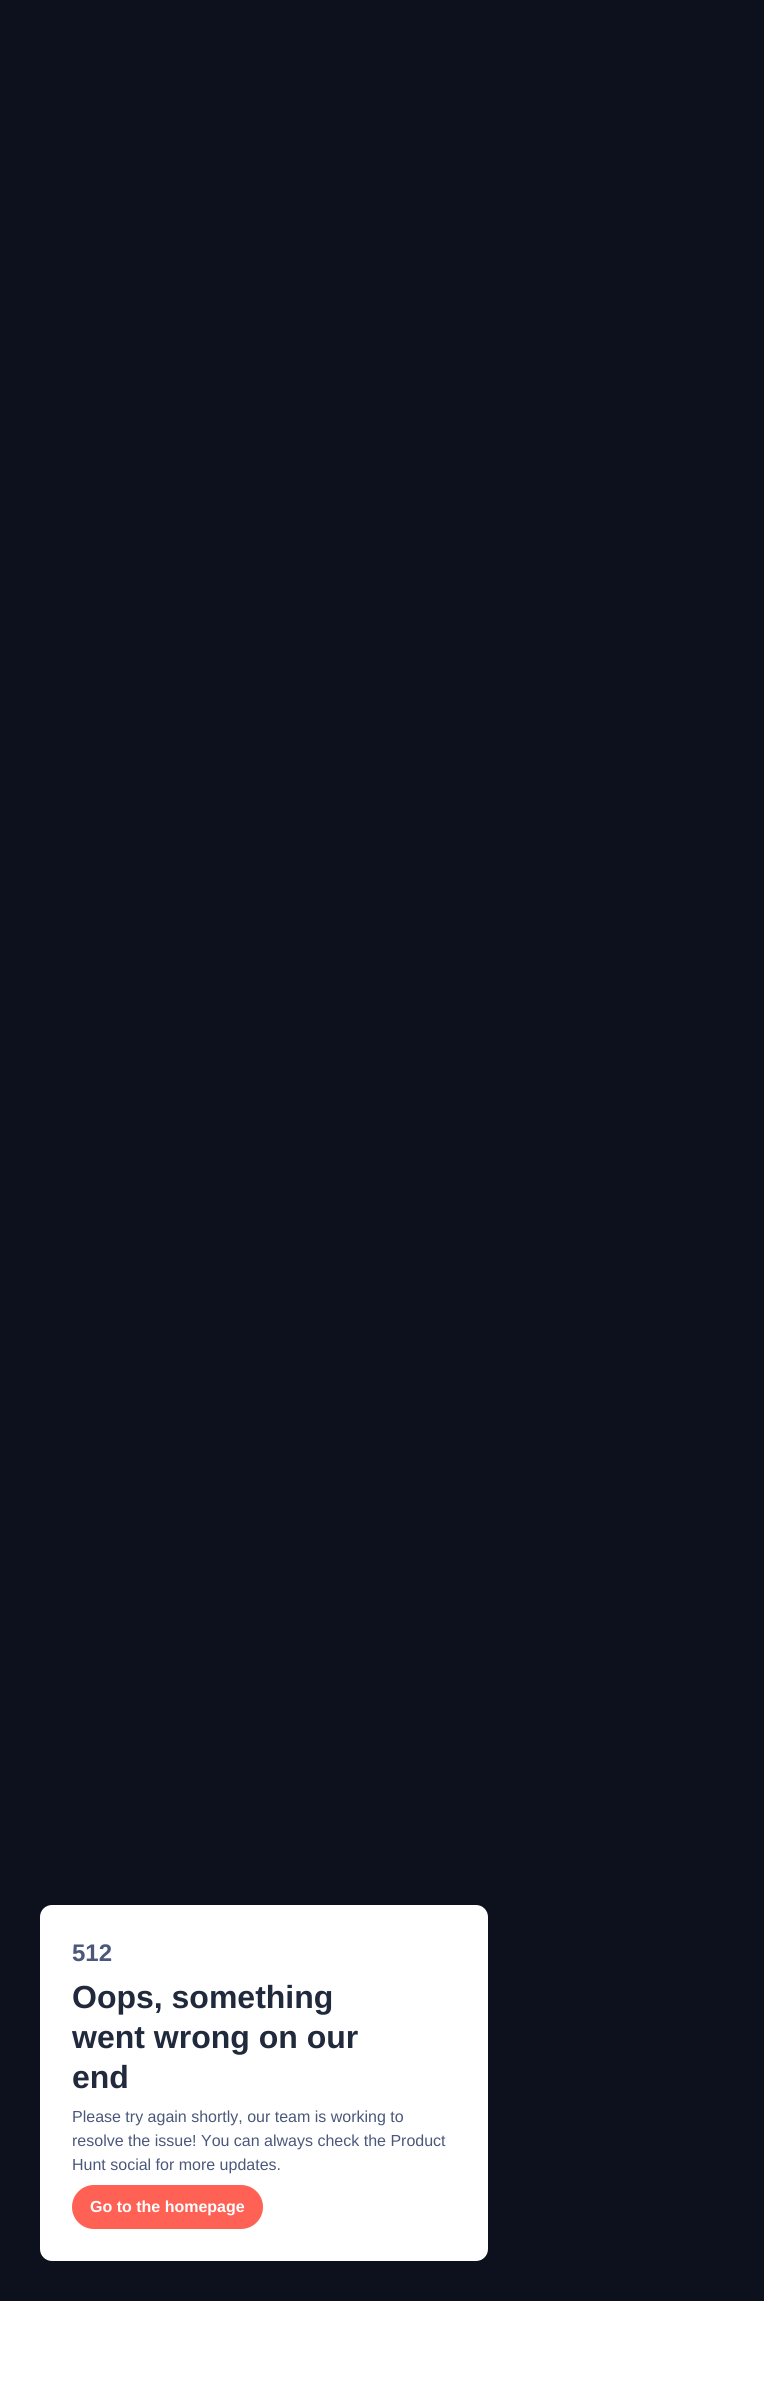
import math
import cairocffi as cairo

surface = cairo.ImageSurface(cairo.FORMAT_RGB24, 779, 2385)
ctx = cairo.Context(surface)
options = cairo.FontOptions()
options.set_hint_metrics(cairo.HINT_METRICS_OFF)
options.set_hint_style(cairo.HINT_STYLE_NONE)
ctx.set_font_options(options)
ctx.set_miter_limit(4)


def rgb(r, g, b):
    ctx.set_source_rgb(r / 255, g / 255, b / 255)


def face(family, size, italic, bold):
    ctx.select_font_face(family, cairo.FONT_SLANT_ITALIC if italic else cairo.FONT_SLANT_NORMAL, cairo.FONT_WEIGHT_BOLD if bold else cairo.FONT_WEIGHT_NORMAL)
    ctx.set_font_size(size)


def label(x, y, s):
    ctx.move_to(x, y)
    ctx.show_text(s)


def rect(x, y, w, h):
    ctx.rectangle(x, y, w, h)
    ctx.fill()


def rrect(x, y, w, h, r):
    ctx.new_sub_path()
    for i, (u, v) in enumerate([(x + w - r, y + h - r), (x + r, y + h - r), (x + r, y + r), (x + w - r, y + r)]):
        ctx.arc(u, v, r, i * math.pi / 2, (i + 1) * math.pi / 2)
    ctx.close_path()


rgb(255, 255, 255)
ctx.paint()
rgb(12, 17, 29)
rect(0, 0, 764, 2301)
rgb(255, 255, 255)
rrect(40, 1905, 448, 356, 12)
ctx.fill()
face('Liberation Sans', 24, 0, 1)
rgb(75, 88, 124)
label(72, 1961, '512')
face('Liberation Sans', 32, 0, 1)
rgb(33, 41, 60)
label(72, 2008, 'Oops, something')
label(72, 2048, 'went wrong on our')
label(72, 2088, 'end')
face('Liberation Sans', 16, 0, 0)
rgb(75, 88, 124)
label(72, 2122, 'Please try again shortly, our team is working to')
label(72, 2146, 'resolve the issue! You can always check the Product')
label(72, 2170, 'Hunt social for more updates.')
rgb(255, 97, 84)
rrect(73, 2186, 189, 42, 21)
ctx.fill_preserve()
ctx.stroke()
face('Liberation Sans', 16, 0, 1)
rgb(255, 255, 255)
label(90, 2212, 'Go to the homepage')
surface.write_to_png('render.png')
